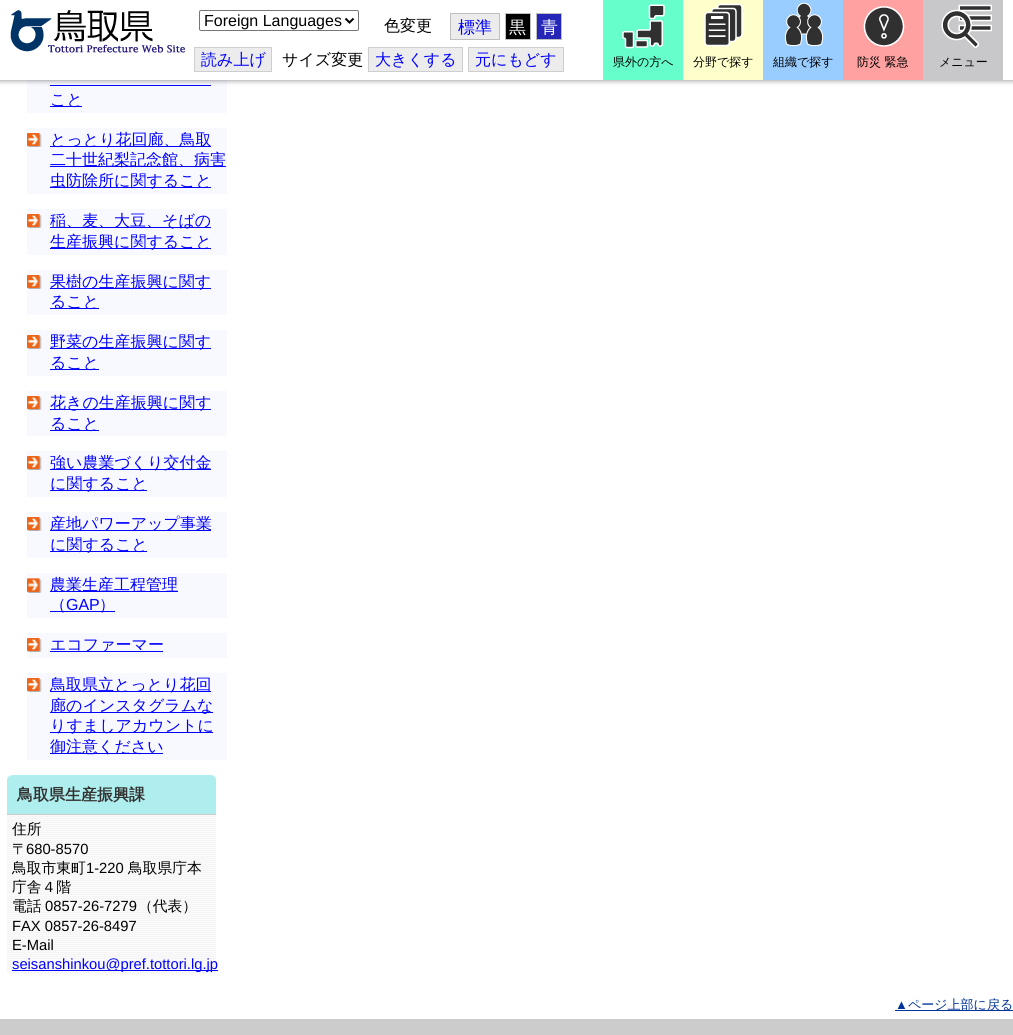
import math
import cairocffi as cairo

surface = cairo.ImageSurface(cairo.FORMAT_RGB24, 1013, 1035)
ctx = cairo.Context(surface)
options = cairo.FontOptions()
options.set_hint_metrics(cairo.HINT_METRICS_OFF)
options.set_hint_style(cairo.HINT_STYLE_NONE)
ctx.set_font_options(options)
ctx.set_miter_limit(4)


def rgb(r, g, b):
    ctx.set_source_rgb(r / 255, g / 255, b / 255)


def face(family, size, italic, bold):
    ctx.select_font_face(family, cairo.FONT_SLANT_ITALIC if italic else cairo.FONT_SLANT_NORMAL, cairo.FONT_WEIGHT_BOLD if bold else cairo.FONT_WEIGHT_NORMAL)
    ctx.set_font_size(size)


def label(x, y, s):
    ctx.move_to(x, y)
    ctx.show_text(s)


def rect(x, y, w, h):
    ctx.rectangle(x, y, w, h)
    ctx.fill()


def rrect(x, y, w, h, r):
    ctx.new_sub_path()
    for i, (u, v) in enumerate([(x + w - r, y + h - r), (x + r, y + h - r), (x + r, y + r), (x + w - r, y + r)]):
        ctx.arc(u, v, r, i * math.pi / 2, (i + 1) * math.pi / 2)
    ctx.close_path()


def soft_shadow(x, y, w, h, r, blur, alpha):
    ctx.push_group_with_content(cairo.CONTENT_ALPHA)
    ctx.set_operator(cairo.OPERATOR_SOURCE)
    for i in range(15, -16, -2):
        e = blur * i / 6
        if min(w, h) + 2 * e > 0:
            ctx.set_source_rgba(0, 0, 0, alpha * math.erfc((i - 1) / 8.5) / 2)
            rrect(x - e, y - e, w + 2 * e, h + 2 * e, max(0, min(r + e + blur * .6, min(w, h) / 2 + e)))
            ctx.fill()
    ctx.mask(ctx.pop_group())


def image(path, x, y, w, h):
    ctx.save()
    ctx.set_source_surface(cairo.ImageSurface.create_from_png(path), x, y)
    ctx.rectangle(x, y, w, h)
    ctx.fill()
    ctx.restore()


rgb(255, 255, 255)
ctx.paint()
rgb(248, 248, 255)
rect(27, 80, 200, 33)
rgb(0, 0, 255)
rect(50, 85, 161, 1)
rgb(0, 0, 0)
soft_shadow(-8, 1, 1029, 80, 0, 2.5, 0.1)
soft_shadow(-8, 1, 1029, 80, 0, 2.5, 0.1)
soft_shadow(-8, 1, 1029, 80, 0, 2.5, 0.1)
soft_shadow(-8, 1, 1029, 80, 0, 2.5, 0.1)
rgb(255, 255, 255)
rect(0, 0, 1013, 80)
image('image0.png', 10, 10, 175, 43)
rrect(199.5, 10.5, 159, 20, 1.5)
rgb(118, 118, 118)
ctx.set_line_width(1)
ctx.stroke()
ctx.new_path()
ctx.move_to(345.5, 18.5)
ctx.line_to(349.5, 22.5)
ctx.line_to(353.5, 18.5)
rgb(0, 0, 0)
ctx.set_line_width(2)
ctx.stroke()
face('Liberation Sans', 16, 0, 0)
label(204, 26, 'Foreign Languages')
face('WenQuanYi Zen Hei Medium', 16, 0, 0)
label(384, 31, '色変更')
rgb(236, 236, 236)
ctx.rectangle(450.5, 13.5, 49, 26)
ctx.fill_preserve()
rgb(191, 191, 191)
ctx.set_line_width(1)
ctx.stroke()
face('WenQuanYi Zen Hei Medium', 17, 0, 0)
rgb(0, 0, 255)
label(458, 33, '標準')
rgb(0, 0, 0)
ctx.rectangle(505.5, 13.5, 25, 26)
ctx.fill_preserve()
rgb(191, 191, 191)
ctx.stroke()
rgb(255, 255, 255)
label(509, 33, '黒')
rgb(37, 37, 184)
ctx.rectangle(536.5, 13.5, 25, 26)
ctx.fill_preserve()
rgb(191, 191, 191)
ctx.stroke()
rgb(255, 255, 255)
label(541, 33, '青')
rgb(236, 236, 236)
ctx.rectangle(194.5, 47.5, 77, 24)
ctx.fill_preserve()
rgb(206, 206, 206)
ctx.stroke()
face('WenQuanYi Zen Hei Medium', 16, 0, 0)
rgb(0, 0, 255)
label(201, 65, '読み上げ')
rgb(0, 0, 0)
label(282, 65, 'サイズ変更')
rgb(236, 236, 236)
rect(369, 48, 93, 23)
rgb(0, 0, 255)
label(375, 65, '大きくする')
rgb(206, 206, 206)
rect(368, 47, 95, 1)
rect(368, 71, 23, 1)
rect(368, 47, 1, 25)
rect(462, 47, 1, 25)
rect(391, 71, 72, 1)
rgb(236, 236, 236)
rect(469, 48, 94, 23)
rgb(0, 0, 255)
label(475, 65, '元にもどす')
rgb(206, 206, 206)
rect(468, 47, 96, 1)
rect(468, 71, 23, 1)
rect(468, 47, 1, 25)
rect(563, 47, 1, 25)
rect(491, 71, 73, 1)
rgb(102, 255, 204)
rect(603, 0, 80, 80)
image('image1.png', 622, 4, 43, 45)
face('WenQuanYi Zen Hei Medium', 12, 0, 0)
rgb(0, 0, 0)
label(613, 66, '県外の方へ')
rgb(255, 255, 204)
rect(683, 0, 80, 80)
image('image2.png', 704, 3, 39, 44)
rgb(0, 0, 0)
label(693, 66, '分野で探す')
rgb(153, 204, 255)
rect(763, 0, 80, 80)
image('image3.png', 785, 2, 39, 44)
rgb(0, 0, 0)
label(773, 66, '組織で探す')
rgb(255, 161, 161)
rect(843, 0, 80, 80)
image('image4.png', 863, 6, 42, 41)
rgb(0, 0, 0)
label(857, 66, '防災 緊急')
rgb(200, 200, 203)
rect(923, 0, 80, 80)
image('image5.png', 941, 4, 51, 44)
rgb(0, 0, 0)
label(939, 66, 'メニュー')
rgb(0, 0, 255)
rect(50, 106, 32, 1)
face('WenQuanYi Zen Hei Medium', 16, 0, 0)
label(50, 105, 'こと')
rgb(248, 248, 255)
rect(27, 128, 200, 66)
image('image6.png', 27, 133, 15, 14)
rgb(0, 0, 255)
rect(50, 146, 161, 1)
label(50, 145, 'とっとり花回廊、鳥取')
rect(50, 166, 176, 1)
label(50, 165, '二十世紀梨記念館、病害')
rect(50, 187, 161, 1)
label(50, 186, '虫防除所に関すること')
rgb(248, 248, 255)
rect(27, 209, 200, 46)
image('image6.png', 27, 214, 15, 14)
rgb(0, 0, 255)
rect(50, 227, 161, 1)
label(50, 226, '稲、麦、大豆、そばの')
rect(50, 248, 161, 1)
label(50, 247, '生産振興に関すること')
rgb(248, 248, 255)
rect(27, 270, 200, 45)
image('image6.png', 27, 275, 15, 14)
rgb(0, 0, 255)
rect(50, 288, 161, 1)
label(50, 287, '果樹の生産振興に関す')
rect(50, 308, 49, 1)
label(50, 307, 'ること')
rgb(248, 248, 255)
rect(27, 330, 200, 46)
image('image6.png', 27, 335, 15, 14)
rgb(0, 0, 255)
rect(50, 348, 161, 1)
label(50, 347, '野菜の生産振興に関す')
rect(50, 369, 49, 1)
label(50, 368, 'ること')
rgb(248, 248, 255)
rect(27, 391, 200, 45)
image('image6.png', 27, 396, 15, 14)
rgb(0, 0, 255)
rect(50, 409, 161, 1)
label(50, 408, '花きの生産振興に関す')
rect(50, 430, 49, 1)
label(50, 429, 'ること')
rgb(248, 248, 255)
rect(27, 451, 200, 46)
image('image6.png', 27, 456, 15, 14)
rgb(0, 0, 255)
rect(50, 469, 161, 1)
label(50, 468, '強い農業づくり交付金')
rect(50, 490, 97, 1)
label(50, 489, 'に関すること')
rgb(248, 248, 255)
rect(27, 512, 200, 46)
image('image6.png', 27, 517, 15, 14)
rgb(0, 0, 255)
rect(50, 530, 161, 1)
label(50, 529, '産地パワーアップ事業')
rect(50, 551, 97, 1)
label(50, 550, 'に関すること')
rgb(248, 248, 255)
rect(27, 573, 200, 45)
image('image7.png', 27, 578, 15, 15)
rgb(0, 0, 255)
rect(50, 591, 128, 1)
label(50, 590, '農業生産工程管理')
rect(50, 611, 65, 1)
label(50, 610, '（')
face('Liberation Sans', 16, 0, 0)
label(66, 610, 'GAP')
face('WenQuanYi Zen Hei Medium', 16, 0, 0)
label(99, 610, '）')
rgb(248, 248, 255)
rect(27, 633, 200, 25)
image('image6.png', 27, 638, 15, 14)
rgb(0, 0, 255)
rect(50, 651, 113, 1)
label(50, 650, 'エコファーマー')
rgb(248, 248, 255)
rect(27, 673, 200, 87)
image('image6.png', 27, 678, 15, 14)
rgb(0, 0, 255)
rect(50, 691, 161, 1)
label(50, 690, '鳥取県立とっとり花回')
rect(50, 712, 163, 1)
label(50, 711, '廊のインスタグラムな')
rect(50, 732, 163, 1)
label(50, 731, 'りすましアカウントに')
rect(50, 753, 113, 1)
label(50, 752, '御注意ください')
rgb(175, 238, 238)
rect(7, 775, 209, 39)
image('image8.png', 7, 775, 6, 5)
image('image9.png', 211, 775, 5, 5)
face('WenQuanYi Zen Hei', 16, 0, 1)
rgb(51, 51, 51)
label(17, 800, '鳥取県生産振興課')
image('image10.png', 7, 815, 209, 159)
rgb(204, 204, 204)
rect(7, 814, 209, 1)
face('WenQuanYi Zen Hei Medium', 14.75, 0, 0)
rgb(0, 0, 0)
label(12, 834, '住所')
label(12, 854, '〒')
face('Liberation Sans', 14.75, 0, 0)
label(26, 854, '680-8570')
face('WenQuanYi Zen Hei Medium', 14.75, 0, 0)
label(12, 873, '鳥取市東町')
face('Liberation Sans', 14.75, 0, 0)
label(86, 873, '1-220')
face('WenQuanYi Zen Hei Medium', 14.75, 0, 0)
label(128, 873, '鳥取県庁本')
label(12, 892, '庁舎４階')
label(12, 911, '電話')
face('Liberation Sans', 14.75, 0, 0)
label(45, 911, '0857-26-7279')
face('WenQuanYi Zen Hei Medium', 14.75, 0, 0)
label(138, 911, '（代表）')
face('Liberation Sans', 14.75, 0, 0)
label(12, 931, 'FAX 0857-26-8497')
label(12, 950, 'E-Mail')
rgb(0, 0, 255)
rect(12, 970, 206, 1)
label(12, 969, 'seisanshinkou@pref.tottori.lg.jp')
face('Liberation Sans', 13, 0, 0)
rgb(0, 51, 153)
label(895, 1009, '▲')
rect(895, 1010, 118, 1)
face('WenQuanYi Zen Hei Medium', 13, 0, 0)
label(908, 1009, 'ページ上部に戻る')
rgb(204, 204, 204)
rect(0, 1019, 1013, 16)
surface.write_to_png('render.png')
